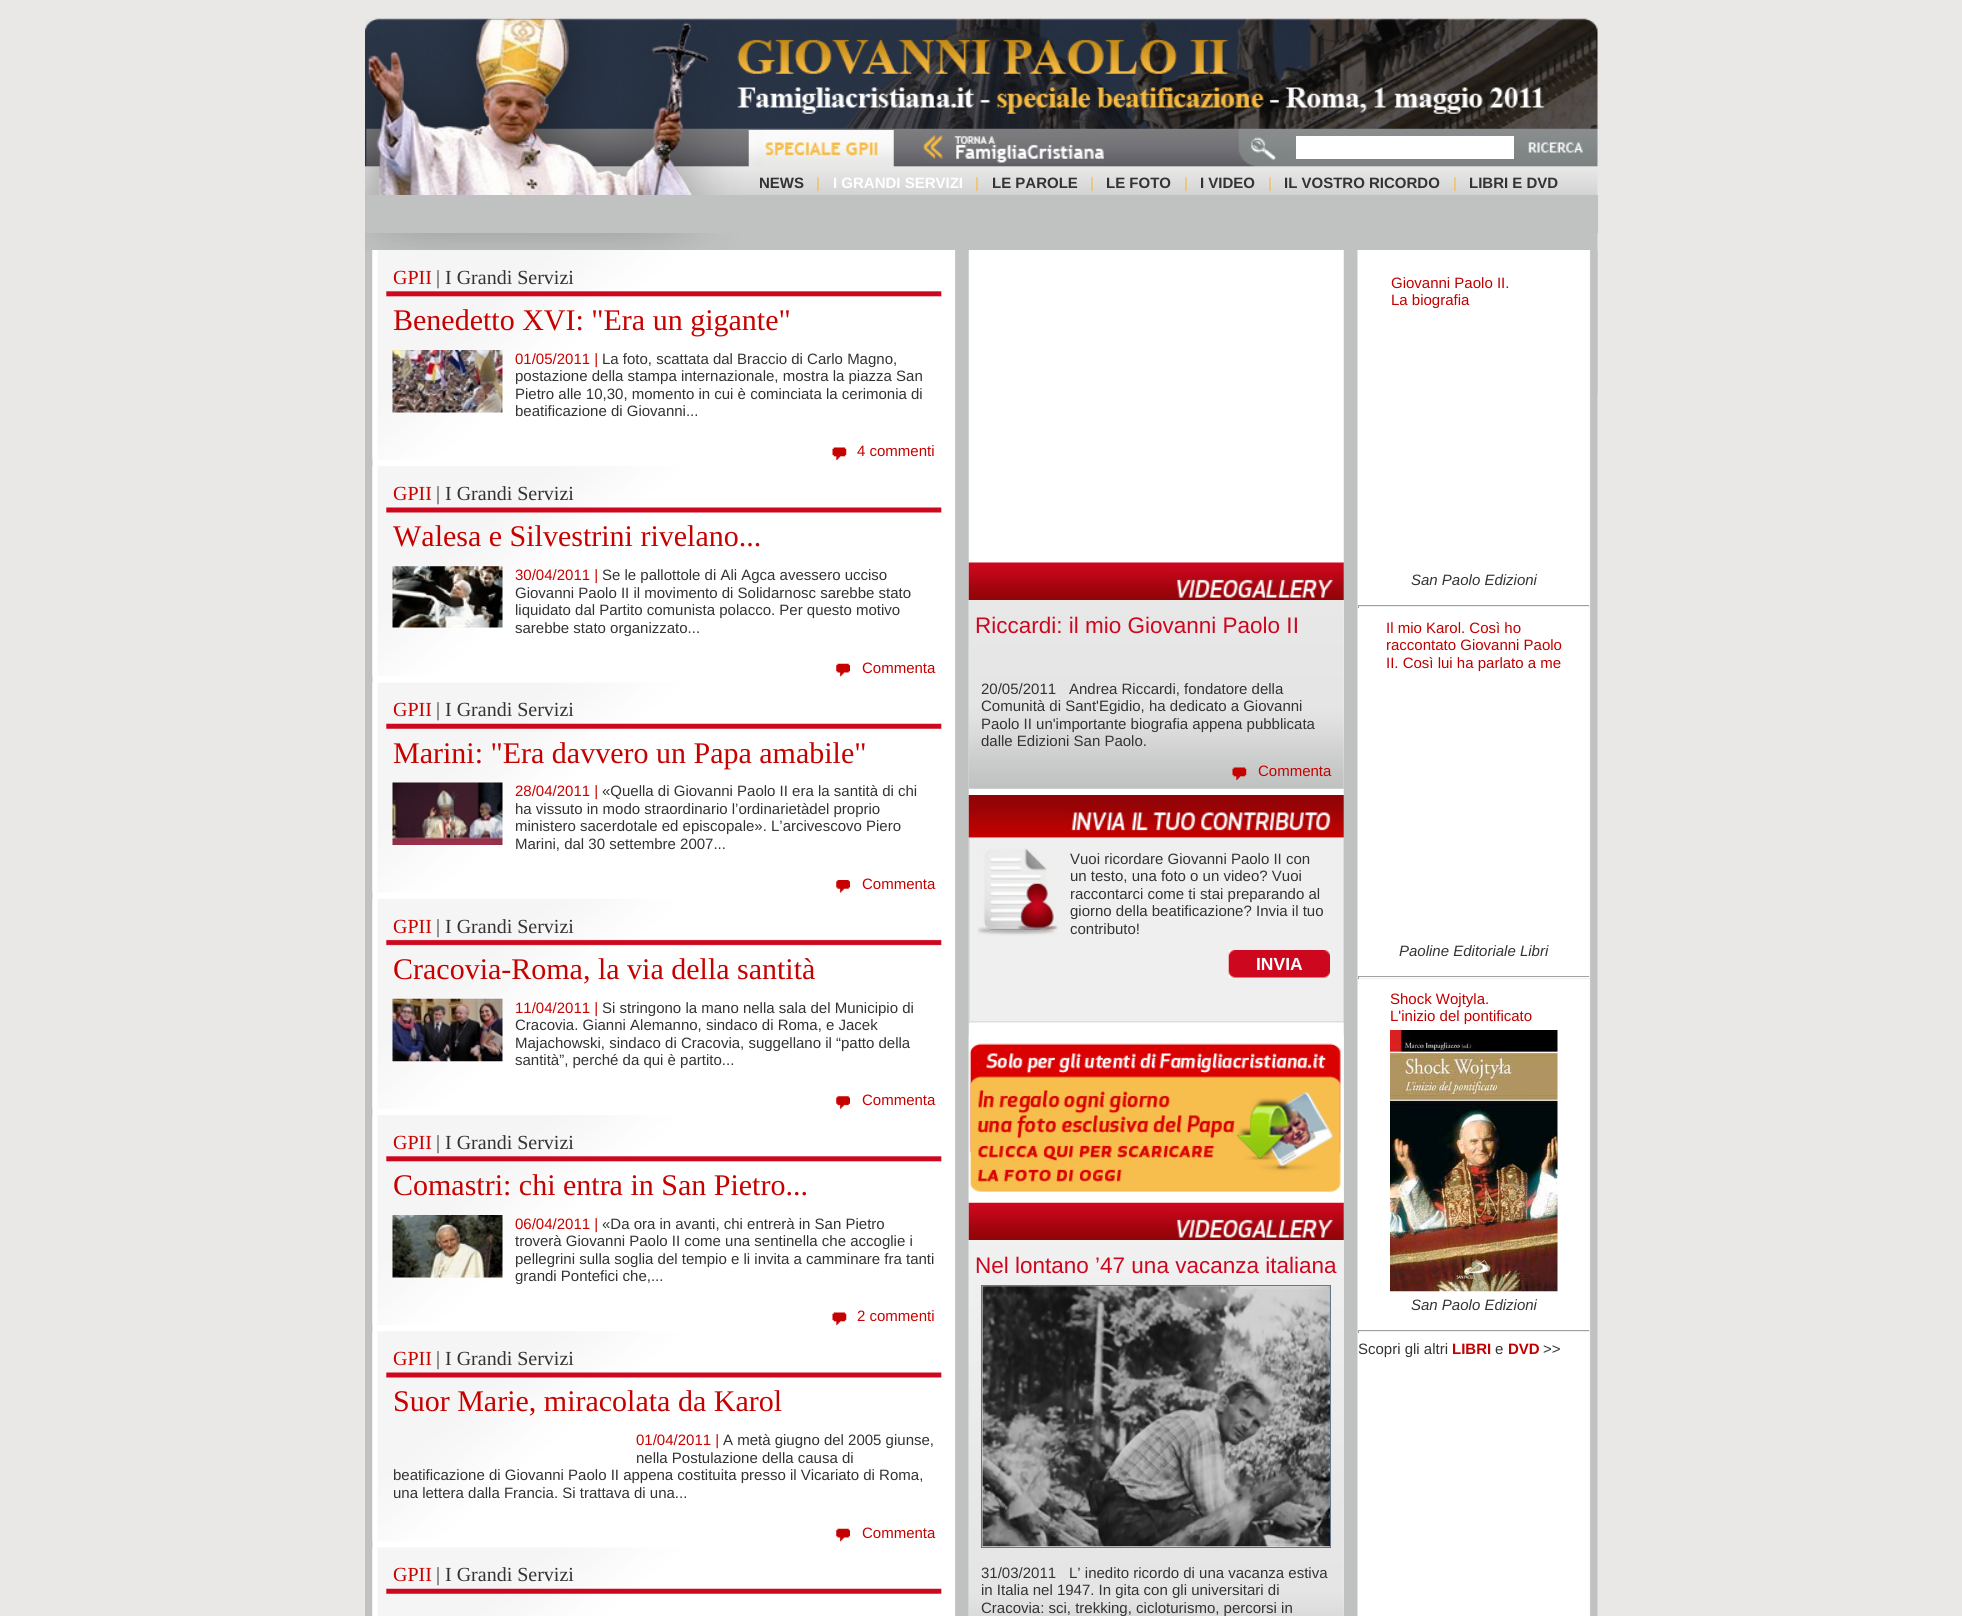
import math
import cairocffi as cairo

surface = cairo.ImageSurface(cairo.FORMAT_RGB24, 1962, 1616)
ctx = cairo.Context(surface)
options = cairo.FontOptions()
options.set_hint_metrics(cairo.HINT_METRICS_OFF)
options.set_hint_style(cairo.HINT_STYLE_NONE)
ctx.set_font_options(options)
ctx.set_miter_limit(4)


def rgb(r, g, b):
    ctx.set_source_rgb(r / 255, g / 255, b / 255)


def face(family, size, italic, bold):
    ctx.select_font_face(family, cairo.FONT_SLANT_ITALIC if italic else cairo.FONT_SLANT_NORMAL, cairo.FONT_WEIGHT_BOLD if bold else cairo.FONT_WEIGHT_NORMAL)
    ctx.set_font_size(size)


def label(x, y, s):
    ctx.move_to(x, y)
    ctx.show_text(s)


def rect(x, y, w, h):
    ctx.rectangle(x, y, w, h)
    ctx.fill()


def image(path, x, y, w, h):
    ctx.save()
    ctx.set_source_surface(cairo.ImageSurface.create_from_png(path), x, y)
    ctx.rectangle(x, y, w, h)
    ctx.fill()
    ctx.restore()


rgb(233, 232, 231)
ctx.paint()
image('image0.png', 365, 18, 1233, 376)
rgb(255, 255, 255)
rect(1296, 136, 218, 23)
image('image1.png', 1528, 142, 56, 11)
image('image2.png', 923, 135, 181, 28)
image('image3.png', 748, 130, 146, 37)
face('Liberation Sans', 15, 0, 1)
rgb(51, 51, 51)
label(759, 188, 'NEWS')
face('Liberation Sans', 15, 0, 0)
rgb(247, 187, 66)
label(816, 188, '|')
face('Liberation Sans', 15, 0, 1)
rgb(255, 255, 255)
label(833, 188, 'I GRANDI SERVIZI')
face('Liberation Sans', 15, 0, 0)
rgb(247, 187, 66)
label(975, 188, '|')
face('Liberation Sans', 15, 0, 1)
rgb(51, 51, 51)
label(992, 188, 'LE PAROLE')
face('Liberation Sans', 15, 0, 0)
rgb(247, 187, 66)
label(1090, 188, '|')
face('Liberation Sans', 15, 0, 1)
rgb(51, 51, 51)
label(1106, 188, 'LE FOTO')
face('Liberation Sans', 15, 0, 0)
rgb(247, 187, 66)
label(1184, 188, '|')
face('Liberation Sans', 15, 0, 1)
rgb(51, 51, 51)
label(1200, 188, 'I VIDEO')
face('Liberation Sans', 15, 0, 0)
rgb(247, 187, 66)
label(1268, 188, '|')
face('Liberation Sans', 15, 0, 1)
rgb(51, 51, 51)
label(1284, 188, 'IL VOSTRO RICORDO')
face('Liberation Sans', 15, 0, 0)
rgb(247, 187, 66)
label(1453, 188, '|')
face('Liberation Sans', 15, 0, 1)
rgb(51, 51, 51)
label(1469, 188, 'LIBRI E DVD')
rgb(192, 194, 194)
rect(365, 195, 1233, 38)
image('image4.png', 365, 250, 1233, 1366)
rgb(255, 255, 255)
rect(954, 250, 1, 210)
image('image5.png', 372, 250, 570, 210)
face('Liberation Serif', 20, 0, 0)
rgb(198, 2, 0)
label(393, 284, 'GPII')
rgb(51, 51, 51)
label(436, 284, '| I Grandi Servizi')
face('Liberation Serif', 30, 0, 0)
rgb(198, 2, 0)
label(393, 330, 'Benedetto XVI: "Era un gigante"')
image('image6.png', 392, 350, 111, 63)
face('Liberation Sans', 15, 0, 0)
label(515, 364, '01/05/2011 |')
rgb(51, 51, 51)
label(602, 364, 'La foto, scattata dal Braccio di Carlo Magno,')
label(515, 381, 'postazione della stampa internazionale, mostra la piazza San')
label(515, 399, 'Pietro alle 10,30, momento in cui è cominciata la cerimonia di')
label(515, 416, 'beatificazione di Giovanni...')
image('image7.png', 832, 447, 15, 13)
rgb(198, 2, 0)
label(857, 456, '4 commenti')
rgb(255, 255, 255)
rect(954, 466, 1, 210)
image('image8.png', 372, 466, 570, 211)
face('Liberation Serif', 20, 0, 0)
rgb(198, 2, 0)
label(393, 500, 'GPII')
rgb(51, 51, 51)
label(436, 500, '| I Grandi Servizi')
face('Liberation Serif', 30, 0, 0)
rgb(198, 2, 0)
label(393, 546, 'Walesa e Silvestrini rivelano...')
image('image9.png', 392, 566, 111, 62)
face('Liberation Sans', 15, 0, 0)
label(515, 580, '30/04/2011 |')
rgb(51, 51, 51)
label(602, 580, 'Se le pallottole di Ali Agca avessero ucciso')
label(515, 598, 'Giovanni Paolo II il movimento di Solidarnosc sarebbe stato')
label(515, 615, 'liquidato dal Partito comunista polacco. Per questo motivo')
label(515, 633, 'sarebbe stato organizzato...')
image('image10.png', 836, 663, 14, 14)
rgb(198, 2, 0)
label(862, 673, 'Commenta')
rgb(255, 255, 255)
rect(954, 683, 1, 210)
image('image11.png', 372, 682, 570, 211)
face('Liberation Serif', 20, 0, 0)
rgb(198, 2, 0)
label(393, 716, 'GPII')
rgb(51, 51, 51)
label(436, 716, '| I Grandi Servizi')
face('Liberation Serif', 30, 0, 0)
rgb(198, 2, 0)
label(393, 763, 'Marini: "Era davvero un Papa amabile"')
image('image12.png', 392, 782, 111, 63)
face('Liberation Sans', 15, 0, 0)
label(515, 796, '28/04/2011 |')
rgb(51, 51, 51)
label(602, 796, '«Quella di Giovanni Paolo II era la santità di chi')
label(515, 814, 'ha vissuto in modo straordinario l’ordinarietàdel proprio')
label(515, 831, 'ministero sacerdotale ed episcopale». L’arcivescovo Piero')
label(515, 849, 'Marini, dal 30 settembre 2007...')
image('image13.png', 836, 880, 14, 13)
rgb(198, 2, 0)
label(862, 889, 'Commenta')
rgb(255, 255, 255)
rect(954, 899, 1, 210)
image('image14.png', 372, 898, 570, 211)
face('Liberation Serif', 20, 0, 0)
rgb(198, 2, 0)
label(393, 933, 'GPII')
rgb(51, 51, 51)
label(436, 933, '| I Grandi Servizi')
face('Liberation Serif', 30, 0, 0)
rgb(198, 2, 0)
label(393, 979, 'Cracovia-Roma, la via della santità')
image('image15.png', 392, 998, 111, 64)
face('Liberation Sans', 15, 0, 0)
label(515, 1013, '11/04/2011 |')
rgb(51, 51, 51)
label(602, 1013, 'Si stringono la mano nella sala del Municipio di')
label(515, 1030, 'Cracovia. Gianni Alemanno, sindaco di Roma, e Jacek')
label(515, 1048, 'Majachowski, sindaco di Cracovia, suggellano il “patto della')
label(515, 1065, 'santità”, perché da qui è partito...')
image('image16.png', 836, 1096, 14, 13)
rgb(198, 2, 0)
label(862, 1105, 'Commenta')
rgb(255, 255, 255)
rect(954, 1115, 1, 210)
image('image5.png', 372, 1115, 570, 210)
face('Liberation Serif', 20, 0, 0)
rgb(198, 2, 0)
label(393, 1149, 'GPII')
rgb(51, 51, 51)
label(436, 1149, '| I Grandi Servizi')
face('Liberation Serif', 30, 0, 0)
rgb(198, 2, 0)
label(393, 1195, 'Comastri: chi entra in San Pietro...')
image('image17.png', 392, 1215, 111, 63)
face('Liberation Sans', 15, 0, 0)
label(515, 1229, '06/04/2011 |')
rgb(51, 51, 51)
label(602, 1229, '«Da ora in avanti, chi entrerà in San Pietro')
label(515, 1246, 'troverà Giovanni Paolo II come una sentinella che accoglie i')
label(515, 1264, 'pellegrini sulla soglia del tempio e li invita a camminare fra tanti')
label(515, 1281, 'grandi Pontefici che,...')
image('image7.png', 832, 1312, 15, 13)
rgb(198, 2, 0)
label(857, 1321, '2 commenti')
rgb(255, 255, 255)
rect(954, 1331, 1, 210)
image('image8.png', 372, 1331, 570, 211)
face('Liberation Serif', 20, 0, 0)
rgb(198, 2, 0)
label(393, 1365, 'GPII')
rgb(51, 51, 51)
label(436, 1365, '| I Grandi Servizi')
face('Liberation Serif', 30, 0, 0)
rgb(198, 2, 0)
label(393, 1411, 'Suor Marie, miracolata da Karol')
face('Liberation Sans', 15, 0, 0)
label(636, 1445, '01/04/2011 |')
rgb(51, 51, 51)
label(723, 1445, 'A metà giugno del 2005 giunse,')
label(636, 1463, 'nella Postulazione della causa di')
label(393, 1480, 'beatificazione di Giovanni Paolo II appena costituita presso il Vicariato di Roma,')
label(393, 1498, 'una lettera dalla Francia. Si trattava di una...')
image('image10.png', 836, 1528, 14, 14)
rgb(198, 2, 0)
label(862, 1538, 'Commenta')
rgb(255, 255, 255)
rect(954, 1548, 1, 68)
image('image18.png', 372, 1547, 570, 69)
face('Liberation Serif', 20, 0, 0)
rgb(198, 2, 0)
label(393, 1581, 'GPII')
rgb(51, 51, 51)
label(436, 1581, '| I Grandi Servizi')
image('image19.png', 968, 562, 376, 38)
rgb(243, 243, 243)
rect(969, 600, 375, 189)
image('image20.png', 968, 600, 376, 189)
face('Liberation Sans', 22.5, 0, 0)
rgb(205, 7, 30)
label(975, 633, 'Riccardi: il mio Giovanni Paolo II')
face('Liberation Sans', 15, 0, 0)
rgb(51, 51, 51)
label(981, 694, '20/05/2011')
label(1069, 694, 'Andrea Riccardi, fondatore della')
label(981, 711, 'Comunità di Sant\'Egidio, ha dedicato a Giovanni')
label(981, 729, 'Paolo II un\'importante biografia appena pubblicata')
label(981, 746, 'dalle Edizioni San Paolo.')
image('image21.png', 1232, 767, 15, 13)
rgb(198, 2, 0)
label(1258, 776, 'Commenta')
image('image22.png', 968, 795, 376, 43)
rgb(239, 239, 239)
rect(970, 838, 373, 185)
image('image23.png', 977, 848, 81, 88)
rgb(221, 221, 221)
rect(1343, 838, 1, 185)
rect(969, 1021, 375, 1)
rect(969, 838, 1, 185)
rgb(51, 51, 51)
label(1070, 864, 'Vuoi ricordare Giovanni Paolo II con')
label(1070, 881, 'un testo, una foto o un video? Vuoi')
label(1070, 899, 'raccontarci come ti stai preparando al')
label(1070, 916, 'giorno della beatificazione? Invia il tuo')
label(1070, 934, 'contributo!')
image('image24.png', 1228, 950, 102, 28)
face('Liberation Sans', 17.5, 0, 1)
rgb(255, 255, 255)
label(1256, 970, 'INVIA')
image('image26.png', 968, 1202, 376, 38)
image('image25.png', 968, 1035, 376, 168)
image('image27.png', 968, 1240, 376, 376)
face('Liberation Sans', 22.5, 0, 0)
rgb(205, 7, 30)
label(975, 1273, 'Nel lontano ’47 una vacanza italiana')
ctx.rectangle(981.5, 1285.5, 349, 262)
rgb(97, 119, 142)
ctx.set_line_width(1)
ctx.stroke()
image('image28.png', 982, 1286, 348, 261)
face('Liberation Sans', 15, 0, 0)
rgb(51, 51, 51)
label(981, 1578, '31/03/2011')
label(1069, 1578, 'L’ inedito ricordo di una vacanza estiva')
label(981, 1595, 'in Italia nel 1947. In gita con gli universitari di')
label(981, 1613, 'Cracovia: sci, trekking, cicloturismo, percorsi in')
rgb(192, 0, 0)
label(1391, 288, 'Giovanni Paolo II.')
label(1391, 305, 'La biografia')
face('Liberation Sans', 15, 1, 0)
rgb(51, 51, 51)
label(1411, 585, 'San Paolo Edizioni')
rgb(159, 159, 159)
rect(1358, 605, 232, 1)
rgb(238, 238, 238)
rect(1589, 605, 1, 3)
rect(1358, 606, 232, 1)
rgb(159, 159, 159)
rect(1358, 605, 1, 3)
face('Liberation Sans', 15, 0, 0)
rgb(192, 0, 0)
label(1386, 633, 'Il mio Karol. Così ho')
label(1386, 650, 'raccontato Giovanni Paolo')
label(1386, 668, 'II. Così lui ha parlato a me')
face('Liberation Sans', 15, 1, 0)
rgb(51, 51, 51)
label(1399, 956, 'Paoline Editoriale Libri')
rgb(159, 159, 159)
rect(1358, 976, 232, 1)
rgb(238, 238, 238)
rect(1589, 976, 1, 3)
rect(1358, 978, 232, 1)
rgb(159, 159, 159)
rect(1358, 976, 1, 3)
face('Liberation Sans', 15, 0, 0)
rgb(192, 0, 0)
label(1390, 1004, 'Shock Wojtyla.')
label(1390, 1021, 'L\'inizio del pontificato')
image('image29.png', 1390, 1030, 168, 262)
face('Liberation Sans', 15, 1, 0)
rgb(51, 51, 51)
label(1411, 1310, 'San Paolo Edizioni')
rgb(159, 159, 159)
rect(1358, 1330, 232, 1)
rgb(238, 238, 238)
rect(1589, 1330, 1, 3)
rect(1358, 1331, 232, 1)
rgb(159, 159, 159)
rect(1358, 1330, 1, 3)
face('Liberation Sans', 15, 0, 0)
rgb(51, 51, 51)
label(1358, 1354, 'Scopri gli altri')
face('Liberation Sans', 15, 0, 1)
rgb(192, 0, 0)
label(1452, 1354, 'LIBRI')
face('Liberation Sans', 15, 0, 0)
rgb(51, 51, 51)
label(1495, 1354, 'e')
face('Liberation Sans', 15, 0, 1)
rgb(192, 0, 0)
label(1508, 1354, 'DVD')
face('Liberation Sans', 15, 0, 0)
rgb(51, 51, 51)
label(1543, 1354, '>>')
surface.write_to_png('render.png')
